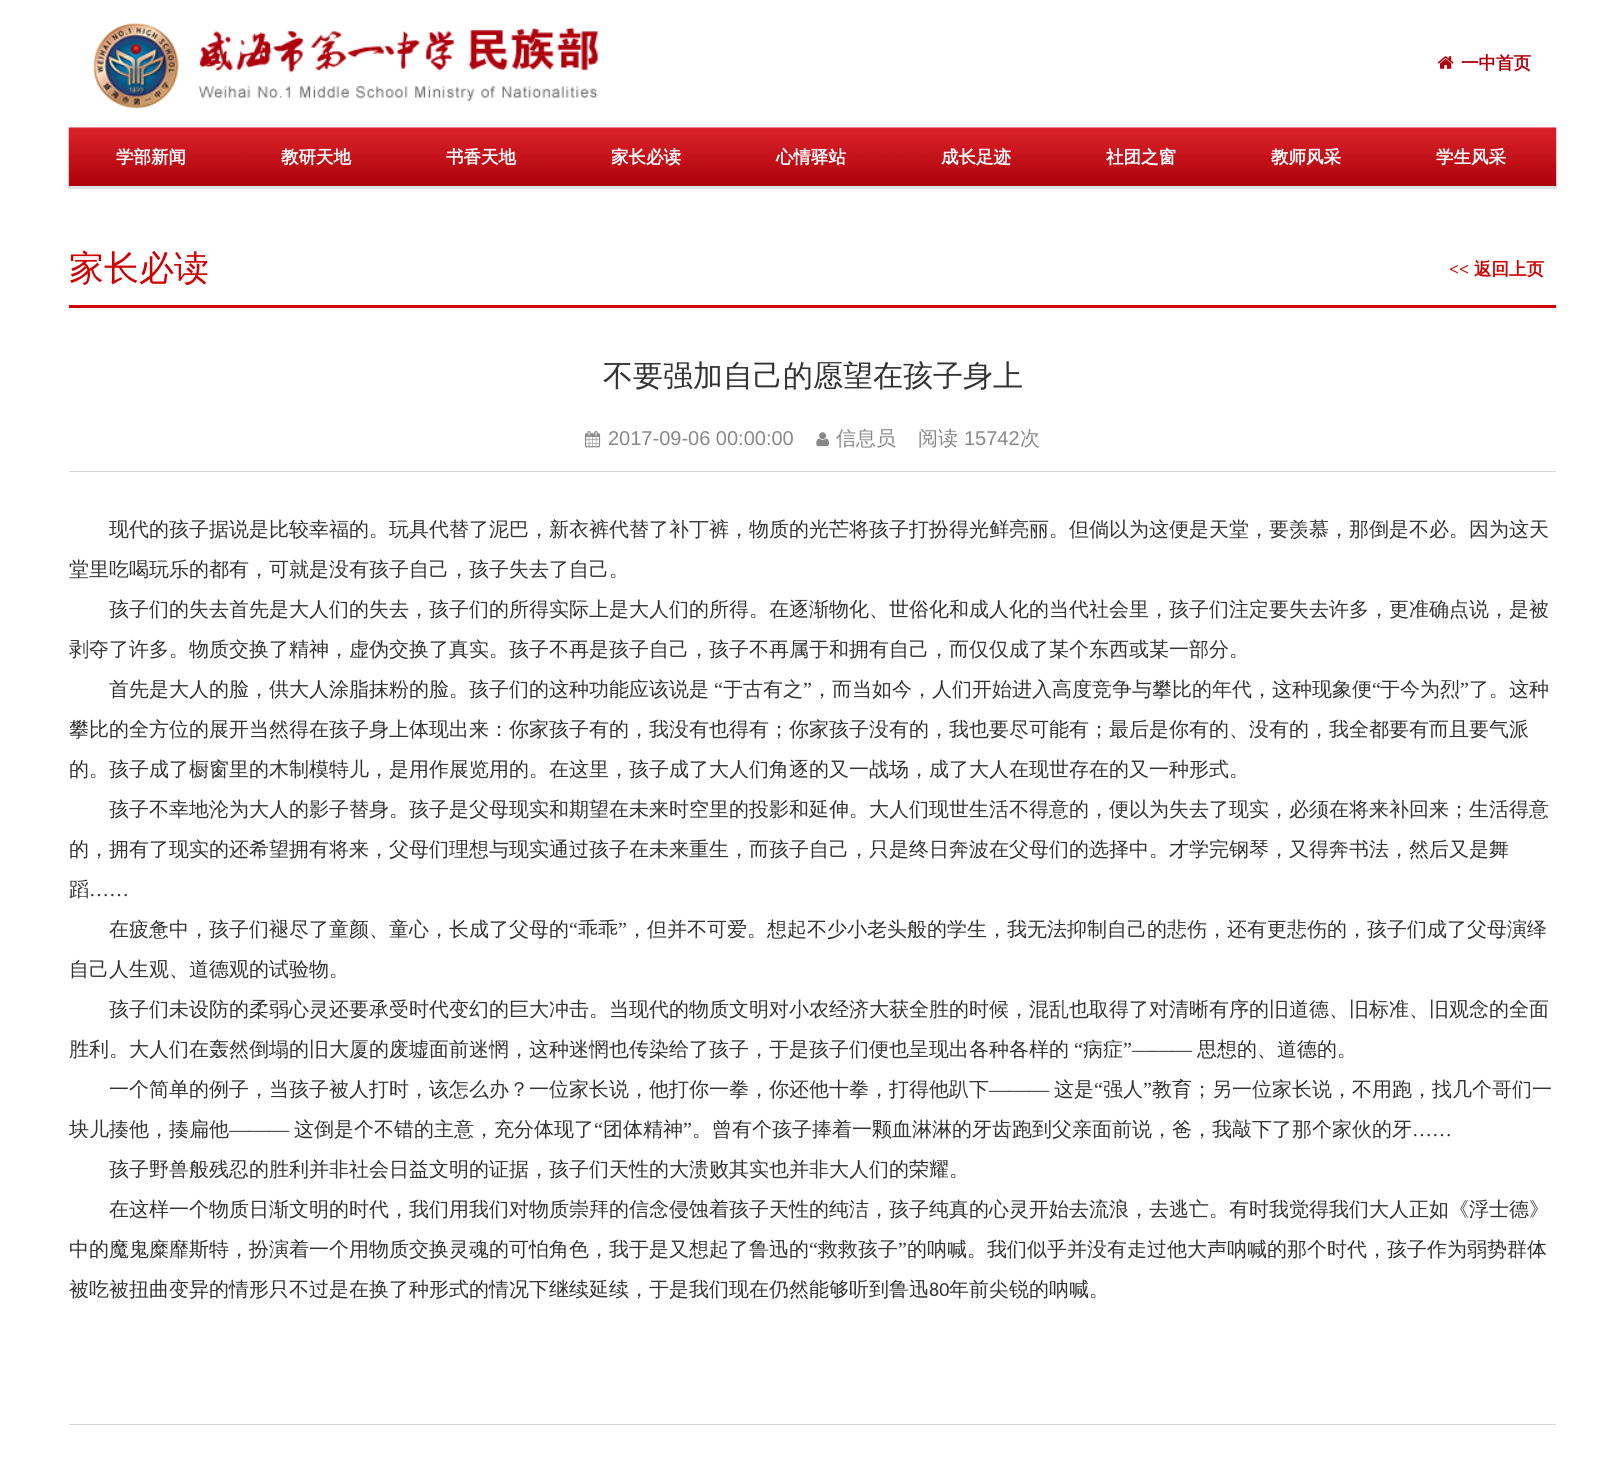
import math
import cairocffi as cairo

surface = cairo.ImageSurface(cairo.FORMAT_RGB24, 1624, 1463)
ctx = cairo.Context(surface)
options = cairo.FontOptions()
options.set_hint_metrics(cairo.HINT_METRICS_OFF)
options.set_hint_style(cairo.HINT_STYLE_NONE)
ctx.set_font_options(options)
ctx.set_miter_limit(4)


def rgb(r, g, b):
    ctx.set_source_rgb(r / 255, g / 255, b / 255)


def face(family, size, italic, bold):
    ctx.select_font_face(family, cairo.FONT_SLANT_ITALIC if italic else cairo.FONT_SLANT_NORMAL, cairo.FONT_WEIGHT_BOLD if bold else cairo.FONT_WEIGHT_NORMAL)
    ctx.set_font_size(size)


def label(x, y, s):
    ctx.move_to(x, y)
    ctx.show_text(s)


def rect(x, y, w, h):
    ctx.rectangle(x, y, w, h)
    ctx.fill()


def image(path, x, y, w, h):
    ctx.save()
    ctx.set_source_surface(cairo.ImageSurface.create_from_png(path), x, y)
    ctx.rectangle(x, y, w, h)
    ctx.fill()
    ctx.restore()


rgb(255, 255, 255)
ctx.paint()
image('image0.png', 93, 22, 505, 87)
image('image1.png', 1437, 56, 17, 13)
face('WenQuanYi Zen Hei', 17.5, 0, 1)
rgb(174, 0, 12)
label(1461, 69, '一中首页')
image('image2.png', 68, 127, 1489, 62)
rgb(220, 225, 230)
rect(69, 186, 1487, 3)
rgb(255, 255, 255)
label(116, 163, '学部新闻')
label(281, 163, '教研天地')
label(446, 163, '书香天地')
label(611, 163, '家长必读')
label(776, 163, '心情驿站')
label(941, 163, '成长足迹')
label(1106, 163, '社团之窗')
label(1271, 163, '教师风采')
label(1436, 163, '学生风采')
rgb(208, 0, 1)
rect(69, 305, 1487, 3)
face('WenQuanYi Zen Hei Medium', 35, 0, 0)
label(69, 280, '家长必读')
face('Liberation Serif', 17.5, 0, 1)
label(1449, 275, '<<')
face('WenQuanYi Zen Hei', 17.5, 0, 1)
label(1474, 275, '返回上页')
face('WenQuanYi Zen Hei Medium', 30, 0, 0)
rgb(51, 51, 51)
label(603, 386, '不要强加自己的愿望在孩子身上')
rgb(215, 215, 215)
rect(69, 471, 1487, 1)
image('image3.png', 585, 431, 16, 17)
face('Liberation Sans', 20, 0, 0)
rgb(136, 136, 136)
label(608, 445, '2017-09-06 00:00:00')
image('image4.png', 816, 432, 13, 15)
face('WenQuanYi Zen Hei Medium', 20, 0, 0)
label(836, 445, '信息员')
label(918, 445, '阅读')
face('Liberation Sans', 20, 0, 0)
label(964, 445, '15742')
face('WenQuanYi Zen Hei Medium', 20, 0, 0)
label(1020, 445, '次')
rgb(51, 51, 51)
label(109, 536, '现代的孩子据说是比较幸福的。玩具代替了泥巴，新衣裤代替了补丁裤，物质的光芒将孩子打扮得光鲜亮丽。但倘以为这便是天堂，要羡慕，那倒是不必。因为这天')
label(69, 576, '堂里吃喝玩乐的都有，可就是没有孩子自己，孩子失去了自己。')
label(109, 616, '孩子们的失去首先是大人们的失去，孩子们的所得实际上是大人们的所得。在逐渐物化、世俗化和成人化的当代社会里，孩子们注定要失去许多，更准确点说，是被')
label(69, 656, '剥夺了许多。物质交换了精神，虚伪交换了真实。孩子不再是孩子自己，孩子不再属于和拥有自己，而仅仅成了某个东西或某一部分。')
label(109, 696, '首先是大人的脸，供大人涂脂抹粉的脸。孩子们的这种功能应该说是')
face('Liberation Serif', 20, 0, 0)
label(714, 696, '“')
face('WenQuanYi Zen Hei Medium', 20, 0, 0)
label(723, 696, '于古有之')
face('Liberation Serif', 20, 0, 0)
label(803, 696, '”')
face('WenQuanYi Zen Hei Medium', 20, 0, 0)
label(812, 696, '，而当如今，人们开始进入高度竞争与攀比的年代，这种现象便')
face('Liberation Serif', 20, 0, 0)
label(1372, 696, '“')
face('WenQuanYi Zen Hei Medium', 20, 0, 0)
label(1380, 696, '于今为烈')
face('Liberation Serif', 20, 0, 0)
label(1460, 696, '”')
face('WenQuanYi Zen Hei Medium', 20, 0, 0)
label(1469, 696, '了。这种')
label(69, 736, '攀比的全方位的展开当然得在孩子身上体现出来：你家孩子有的，我没有也得有；你家孩子没有的，我也要尽可能有；最后是你有的、没有的，我全都要有而且要气派')
label(69, 776, '的。孩子成了橱窗里的木制模特儿，是用作展览用的。在这里，孩子成了大人们角逐的又一战场，成了大人在现世存在的又一种形式。')
label(109, 816, '孩子不幸地沦为大人的影子替身。孩子是父母现实和期望在未来时空里的投影和延伸。大人们现世生活不得意的，便以为失去了现实，必须在将来补回来；生活得意')
label(69, 856, '的，拥有了现实的还希望拥有将来，父母们理想与现实通过孩子在未来重生，而孩子自己，只是终日奔波在父母们的选择中。才学完钢琴，又得奔书法，然后又是舞')
label(69, 896, '蹈')
face('Liberation Serif', 20, 0, 0)
label(89, 896, '……')
face('WenQuanYi Zen Hei Medium', 20, 0, 0)
label(109, 936, '在疲惫中，孩子们褪尽了童颜、童心，长成了父母的')
face('Liberation Serif', 20, 0, 0)
label(569, 936, '“')
face('WenQuanYi Zen Hei Medium', 20, 0, 0)
label(578, 936, '乖乖')
face('Liberation Serif', 20, 0, 0)
label(618, 936, '”')
face('WenQuanYi Zen Hei Medium', 20, 0, 0)
label(627, 936, '，但并不可爱。想起不少小老头般的学生，我无法抑制自己的悲伤，还有更悲伤的，孩子们成了父母演绎')
label(69, 976, '自己人生观、道德观的试验物。')
label(109, 1016, '孩子们未设防的柔弱心灵还要承受时代变幻的巨大冲击。当现代的物质文明对小农经济大获全胜的时候，混乱也取得了对清晰有序的旧道德、旧标准、旧观念的全面')
label(69, 1056, '胜利。大人们在轰然倒塌的旧大厦的废墟面前迷惘，这种迷惘也传染给了孩子，于是孩子们便也呈现出各种各样的')
face('Liberation Serif', 20, 0, 0)
label(1074, 1056, '“')
face('WenQuanYi Zen Hei Medium', 20, 0, 0)
label(1083, 1056, '病症')
face('Liberation Serif', 20, 0, 0)
label(1123, 1056, '”———')
face('WenQuanYi Zen Hei Medium', 20, 0, 0)
label(1197, 1056, '思想的、道德的。')
label(109, 1096, '一个简单的例子，当孩子被人打时，该怎么办？一位家长说，他打你一拳，你还他十拳，打得他趴下')
label(1054, 1096, '这是')
face('Liberation Serif', 20, 0, 0)
label(1094, 1096, '“')
face('WenQuanYi Zen Hei Medium', 20, 0, 0)
label(1103, 1096, '强人')
face('Liberation Serif', 20, 0, 0)
label(1143, 1096, '”')
face('WenQuanYi Zen Hei Medium', 20, 0, 0)
label(1152, 1096, '教育；另一位家长说，不用跑，找几个哥们一')
face('Liberation Serif', 20, 0, 0)
label(989, 1096, '———')
face('WenQuanYi Zen Hei Medium', 20, 0, 0)
label(69, 1136, '块儿揍他，揍扁他')
label(294, 1136, '这倒是个不错的主意，充分体现了')
face('Liberation Serif', 20, 0, 0)
label(594, 1136, '“')
face('WenQuanYi Zen Hei Medium', 20, 0, 0)
label(603, 1136, '团体精神')
face('Liberation Serif', 20, 0, 0)
label(683, 1136, '”')
face('WenQuanYi Zen Hei Medium', 20, 0, 0)
label(692, 1136, '。曾有个孩子捧着一颗血淋淋的牙齿跑到父亲面前说，爸，我敲下了那个家伙的牙')
face('Liberation Serif', 20, 0, 0)
label(229, 1136, '———')
label(1412, 1136, '……')
face('WenQuanYi Zen Hei Medium', 20, 0, 0)
label(109, 1176, '孩子野兽般残忍的胜利并非社会日益文明的证据，孩子们天性的大溃败其实也并非大人们的荣耀。')
label(109, 1216, '在这样一个物质日渐文明的时代，我们用我们对物质崇拜的信念侵蚀着孩子天性的纯洁，孩子纯真的心灵开始去流浪，去逃亡。有时我觉得我们大人正如《浮士德》')
label(69, 1256, '中的魔鬼糜靡斯特，扮演着一个用物质交换灵魂的可怕角色，我于是又想起了鲁迅的')
face('Liberation Serif', 20, 0, 0)
label(809, 1256, '“')
face('WenQuanYi Zen Hei Medium', 20, 0, 0)
label(818, 1256, '救救孩子')
face('Liberation Serif', 20, 0, 0)
label(898, 1256, '”')
face('WenQuanYi Zen Hei Medium', 20, 0, 0)
label(907, 1256, '的呐喊。我们似乎并没有走过他大声呐喊的那个时代，孩子作为弱势群体')
label(69, 1296, '被吃被扭曲变异的情形只不过是在换了种形式的情况下继续延续，于是我们现在仍然能够听到鲁迅')
face('Carlito', 20, 0, 0)
label(929, 1296, '80')
face('WenQuanYi Zen Hei Medium', 20, 0, 0)
label(949, 1296, '年前尖锐的呐喊。')
rgb(215, 215, 215)
rect(69, 1424, 1487, 1)
surface.write_to_png('render.png')
